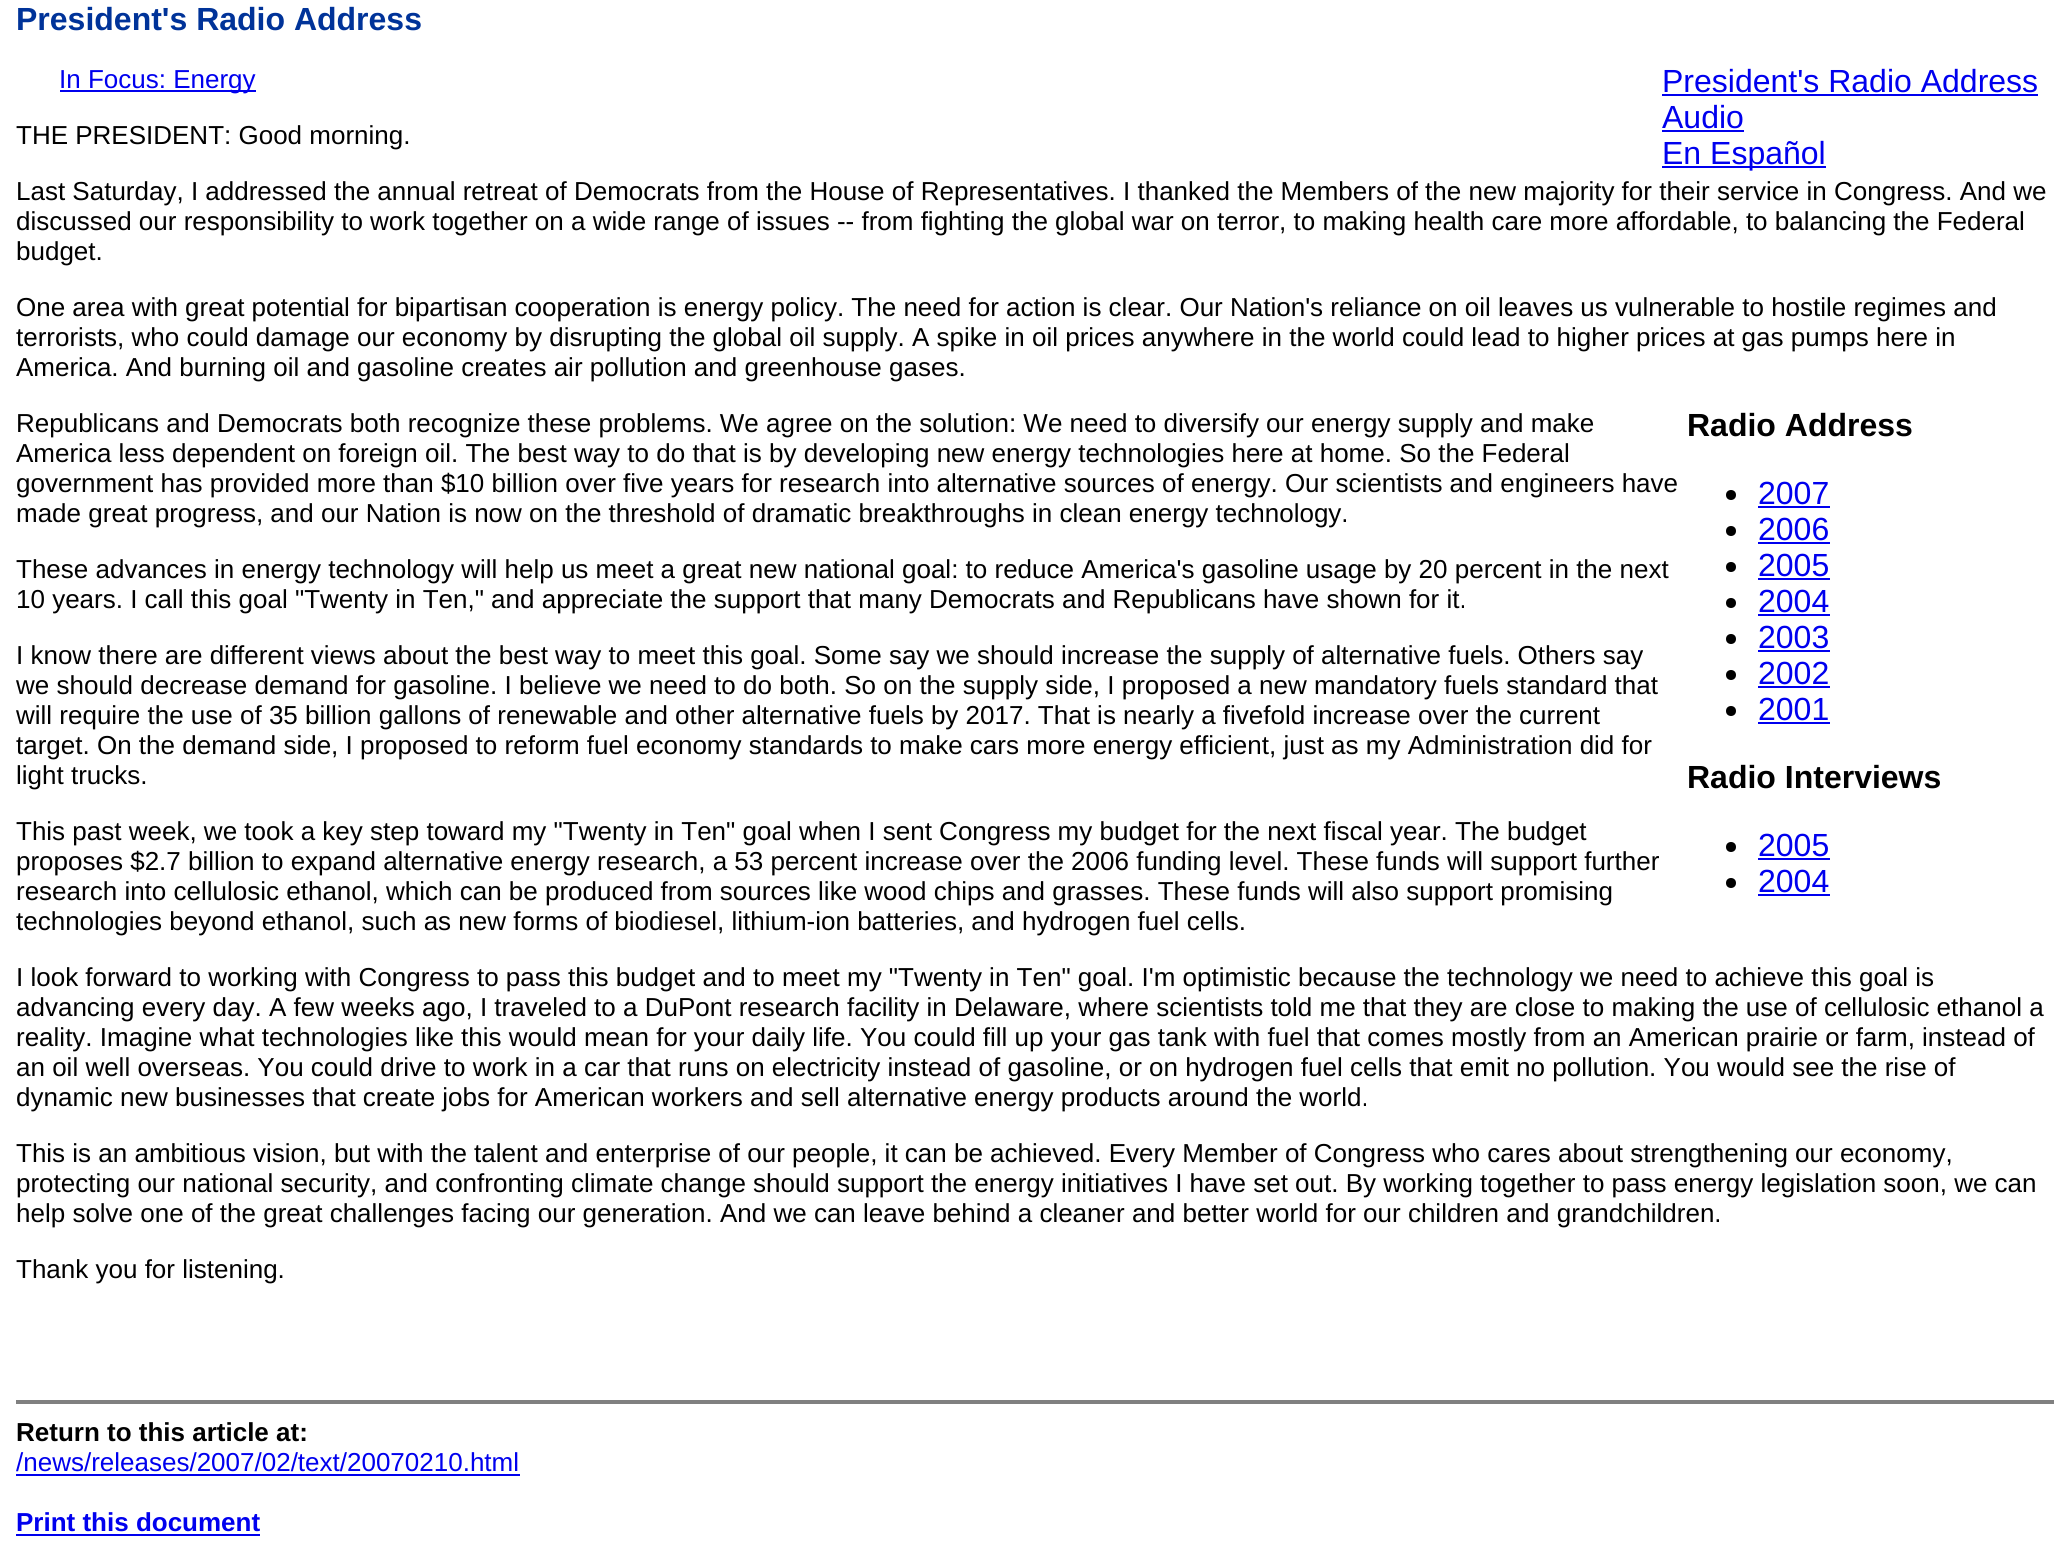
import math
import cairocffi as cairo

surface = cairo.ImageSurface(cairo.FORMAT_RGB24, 2069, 1551)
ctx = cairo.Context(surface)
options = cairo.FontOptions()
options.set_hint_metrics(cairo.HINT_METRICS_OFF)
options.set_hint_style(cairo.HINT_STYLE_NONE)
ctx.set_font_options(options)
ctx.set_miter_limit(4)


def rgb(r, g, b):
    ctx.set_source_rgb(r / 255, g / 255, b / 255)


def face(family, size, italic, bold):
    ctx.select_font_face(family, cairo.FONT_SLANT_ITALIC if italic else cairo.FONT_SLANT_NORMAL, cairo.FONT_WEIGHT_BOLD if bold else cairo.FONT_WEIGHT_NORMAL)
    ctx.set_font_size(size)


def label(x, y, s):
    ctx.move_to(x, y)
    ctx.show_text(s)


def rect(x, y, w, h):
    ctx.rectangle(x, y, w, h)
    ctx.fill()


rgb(255, 255, 255)
ctx.paint()
face('Liberation Sans', 32, 0, 1)
rgb(0, 51, 153)
label(16, 30, 'President\'s Radio Address')
rgb(0, 0, 238)
rect(60, 90, 196, 2)
face('Liberation Sans', 26, 0, 0)
label(59, 88, 'In Focus: Energy')
face('Liberation Sans', 32, 0, 0)
label(1662, 92, 'President\'s Radio Address')
rect(1662, 94, 376, 2)
label(1662, 128, 'Audio')
rect(1662, 130, 82, 2)
rect(1662, 166, 164, 2)
label(1662, 164, 'En Español')
face('Liberation Sans', 26, 0, 0)
rgb(0, 0, 0)
label(16, 144, 'THE PRESIDENT: Good morning.')
label(16, 200, 'Last Saturday, I addressed the annual retreat of Democrats from the House of Representatives. I thanked the Members of the new majority for their service in Congress. And we')
label(16, 230, 'discussed our responsibility to work together on a wide range of issues -- from fighting the global war on terror, to making health care more affordable, to balancing the Federal')
label(16, 260, 'budget.')
label(16, 316, 'One area with great potential for bipartisan cooperation is energy policy. The need for action is clear. Our Nation\'s reliance on oil leaves us vulnerable to hostile regimes and')
label(16, 346, 'terrorists, who could damage our economy by disrupting the global oil supply. A spike in oil prices anywhere in the world could lead to higher prices at gas pumps here in')
label(16, 376, 'America. And burning oil and gasoline creates air pollution and greenhouse gases.')
label(16, 432, 'Republicans and Democrats both recognize these problems. We agree on the solution: We need to diversify our energy supply and make')
face('Liberation Sans', 32, 0, 1)
label(1687, 436, 'Radio Address')
ctx.new_path()
ctx.arc(1731, 495, 5, 0, 2 * math.pi)
ctx.fill()
face('Liberation Sans', 32, 0, 0)
rgb(0, 0, 238)
label(1758, 504, '2007')
rect(1758, 506, 72, 2)
rgb(0, 0, 0)
ctx.new_path()
ctx.arc(1731, 531, 5, 0, 2 * math.pi)
ctx.fill()
rgb(0, 0, 238)
label(1758, 540, '2006')
rect(1758, 542, 72, 2)
rgb(0, 0, 0)
ctx.new_path()
ctx.arc(1731, 567, 5, 0, 2 * math.pi)
ctx.fill()
rgb(0, 0, 238)
label(1758, 576, '2005')
rect(1758, 578, 72, 2)
rgb(0, 0, 0)
ctx.new_path()
ctx.arc(1731, 603, 5, 0, 2 * math.pi)
ctx.fill()
rgb(0, 0, 238)
label(1758, 612, '2004')
rect(1758, 614, 72, 2)
rgb(0, 0, 0)
ctx.new_path()
ctx.arc(1731, 639, 5, 0, 2 * math.pi)
ctx.fill()
rgb(0, 0, 238)
label(1758, 648, '2003')
rect(1758, 650, 72, 2)
rgb(0, 0, 0)
ctx.new_path()
ctx.arc(1731, 675, 5, 0, 2 * math.pi)
ctx.fill()
rgb(0, 0, 238)
label(1758, 684, '2002')
rect(1758, 686, 72, 2)
rgb(0, 0, 0)
ctx.new_path()
ctx.arc(1731, 711, 5, 0, 2 * math.pi)
ctx.fill()
rgb(0, 0, 238)
label(1758, 720, '2001')
rect(1758, 722, 72, 2)
face('Liberation Sans', 32, 0, 1)
rgb(0, 0, 0)
label(1687, 788, 'Radio Interviews')
ctx.new_path()
ctx.arc(1731, 847, 5, 0, 2 * math.pi)
ctx.fill()
face('Liberation Sans', 32, 0, 0)
rgb(0, 0, 238)
label(1758, 856, '2005')
rect(1758, 858, 72, 2)
rgb(0, 0, 0)
ctx.new_path()
ctx.arc(1731, 883, 5, 0, 2 * math.pi)
ctx.fill()
rgb(0, 0, 238)
label(1758, 892, '2004')
rect(1758, 894, 72, 2)
face('Liberation Sans', 26, 0, 0)
rgb(0, 0, 0)
label(16, 462, 'America less dependent on foreign oil. The best way to do that is by developing new energy technologies here at home. So the Federal')
label(16, 492, 'government has provided more than $10 billion over five years for research into alternative sources of energy. Our scientists and engineers have')
label(16, 522, 'made great progress, and our Nation is now on the threshold of dramatic breakthroughs in clean energy technology.')
label(16, 578, 'These advances in energy technology will help us meet a great new national goal: to reduce America\'s gasoline usage by 20 percent in the next')
label(16, 608, '10 years. I call this goal "Twenty in Ten," and appreciate the support that many Democrats and Republicans have shown for it.')
label(16, 664, 'I know there are different views about the best way to meet this goal. Some say we should increase the supply of alternative fuels. Others say')
label(16, 694, 'we should decrease demand for gasoline. I believe we need to do both. So on the supply side, I proposed a new mandatory fuels standard that')
label(16, 724, 'will require the use of 35 billion gallons of renewable and other alternative fuels by 2017. That is nearly a fivefold increase over the current')
label(16, 754, 'target. On the demand side, I proposed to reform fuel economy standards to make cars more energy efficient, just as my Administration did for')
label(16, 784, 'light trucks.')
label(16, 840, 'This past week, we took a key step toward my "Twenty in Ten" goal when I sent Congress my budget for the next fiscal year. The budget')
label(16, 870, 'proposes $2.7 billion to expand alternative energy research, a 53 percent increase over the 2006 funding level. These funds will support further')
label(16, 900, 'research into cellulosic ethanol, which can be produced from sources like wood chips and grasses. These funds will also support promising')
label(16, 930, 'technologies beyond ethanol, such as new forms of biodiesel, lithium-ion batteries, and hydrogen fuel cells.')
label(16, 986, 'I look forward to working with Congress to pass this budget and to meet my "Twenty in Ten" goal. I\'m optimistic because the technology we need to achieve this goal is')
label(16, 1016, 'advancing every day. A few weeks ago, I traveled to a DuPont research facility in Delaware, where scientists told me that they are close to making the use of cellulosic ethanol a')
label(16, 1046, 'reality. Imagine what technologies like this would mean for your daily life. You could fill up your gas tank with fuel that comes mostly from an American prairie or farm, instead of')
label(16, 1076, 'an oil well overseas. You could drive to work in a car that runs on electricity instead of gasoline, or on hydrogen fuel cells that emit no pollution. You would see the rise of')
label(16, 1106, 'dynamic new businesses that create jobs for American workers and sell alternative energy products around the world.')
label(16, 1162, 'This is an ambitious vision, but with the talent and enterprise of our people, it can be achieved. Every Member of Congress who cares about strengthening our economy,')
label(16, 1192, 'protecting our national security, and confronting climate change should support the energy initiatives I have set out. By working together to pass energy legislation soon, we can')
label(16, 1222, 'help solve one of the great challenges facing our generation. And we can leave behind a cleaner and better world for our children and grandchildren.')
label(16, 1278, 'Thank you for listening.')
rgb(128, 128, 128)
rect(16, 1400, 2038, 4)
face('Liberation Sans', 26, 0, 1)
rgb(0, 0, 0)
label(16, 1441, 'Return to this article at:')
face('Liberation Sans', 26, 0, 0)
rgb(0, 0, 238)
label(16, 1471, '/news/releases/2007/02/text/20070210.html')
rect(16, 1474, 504, 2)
face('Liberation Sans', 26, 0, 1)
label(16, 1531, 'Print this document')
rect(16, 1534, 244, 2)
surface.write_to_png('render.png')
